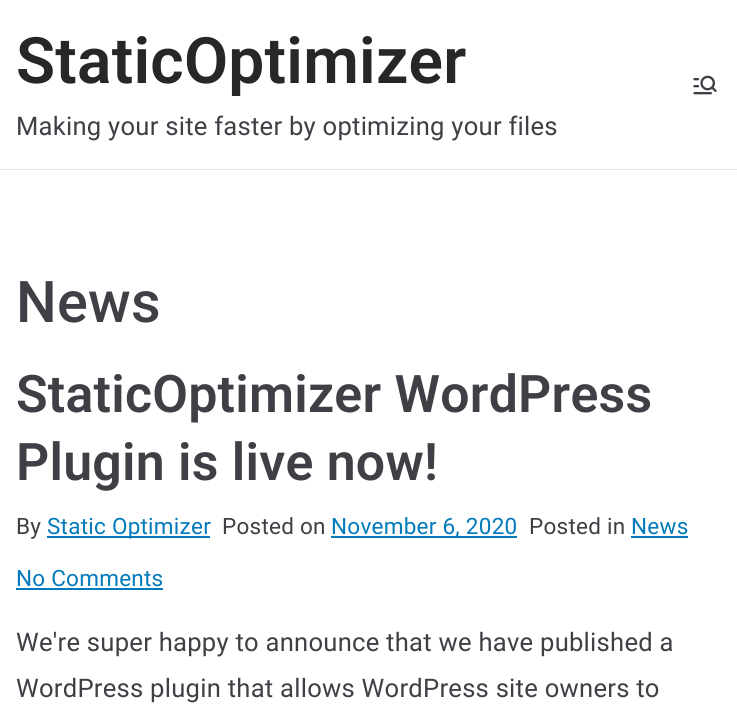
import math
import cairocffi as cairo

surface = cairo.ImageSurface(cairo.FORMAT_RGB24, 737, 722)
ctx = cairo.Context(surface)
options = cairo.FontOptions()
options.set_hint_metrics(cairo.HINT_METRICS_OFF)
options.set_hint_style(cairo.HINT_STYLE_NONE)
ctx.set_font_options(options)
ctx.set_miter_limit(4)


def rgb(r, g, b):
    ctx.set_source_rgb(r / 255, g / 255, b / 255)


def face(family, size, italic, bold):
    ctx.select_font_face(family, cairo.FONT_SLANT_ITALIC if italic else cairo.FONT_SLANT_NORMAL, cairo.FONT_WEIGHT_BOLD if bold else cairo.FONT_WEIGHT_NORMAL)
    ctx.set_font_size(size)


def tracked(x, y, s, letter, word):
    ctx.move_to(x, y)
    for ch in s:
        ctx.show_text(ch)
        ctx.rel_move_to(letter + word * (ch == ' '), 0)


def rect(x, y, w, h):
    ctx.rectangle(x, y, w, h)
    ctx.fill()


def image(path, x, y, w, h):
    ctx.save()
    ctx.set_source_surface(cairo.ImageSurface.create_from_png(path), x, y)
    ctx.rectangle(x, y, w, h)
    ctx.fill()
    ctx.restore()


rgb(228, 228, 231)
ctx.paint()
rgb(255, 255, 255)
rect(0, 0, 737, 169)
face('Roboto SemiBold', 64, 0, 0)
rgb(39, 39, 42)
tracked(16, 83, 'StaticOptimizer', 0.25, 0)
face('Roboto', 25.6, 0, 0)
rgb(63, 63, 70)
tracked(16, 135, 'Making your site faster by optimizing your files', 0.25, 0)
image('image0.png', 693, 75, 24, 20)
rgb(255, 255, 255)
rect(0, 170, 737, 552)
face('Roboto Medium', 57.5, 0, 0)
rgb(63, 63, 70)
tracked(16, 322, 'News', 0.25, 0)
face('Roboto SemiBold', 51.8, 0, 0)
tracked(16, 412, 'StaticOptimizer WordPress', 0.25, 0)
tracked(16, 480, 'Plugin is live now!', 0.25, 0)
face('Roboto', 22.5, 0, 0)
tracked(16, 534, 'By', 0.25, 0)
rgb(2, 122, 187)
rect(47, 536, 163, 2)
tracked(47, 534, 'Static Optimizer', 0.25, 0)
rgb(63, 63, 70)
tracked(222, 534, 'Posted on', 0.25, 0)
rgb(2, 122, 187)
rect(331, 536, 186, 2)
tracked(331, 534, 'November 6, 2020', 0.25, 0)
rgb(63, 63, 70)
tracked(529, 534, 'Posted in', 0.25, 0)
rgb(2, 122, 187)
tracked(631, 534, 'News', 0.25, 0)
rect(631, 536, 57, 2)
tracked(16, 586, 'No Comments', 0.25, 0)
rect(16, 588, 147, 2)
face('Roboto', 25.6, 0, 0)
rgb(63, 63, 70)
tracked(16, 651, 'We\'re super happy to announce that we have published a', 0.25, 0)
tracked(16, 697, 'WordPress plugin that allows WordPress site owners to', 0.25, 0)
surface.write_to_png('render.png')
